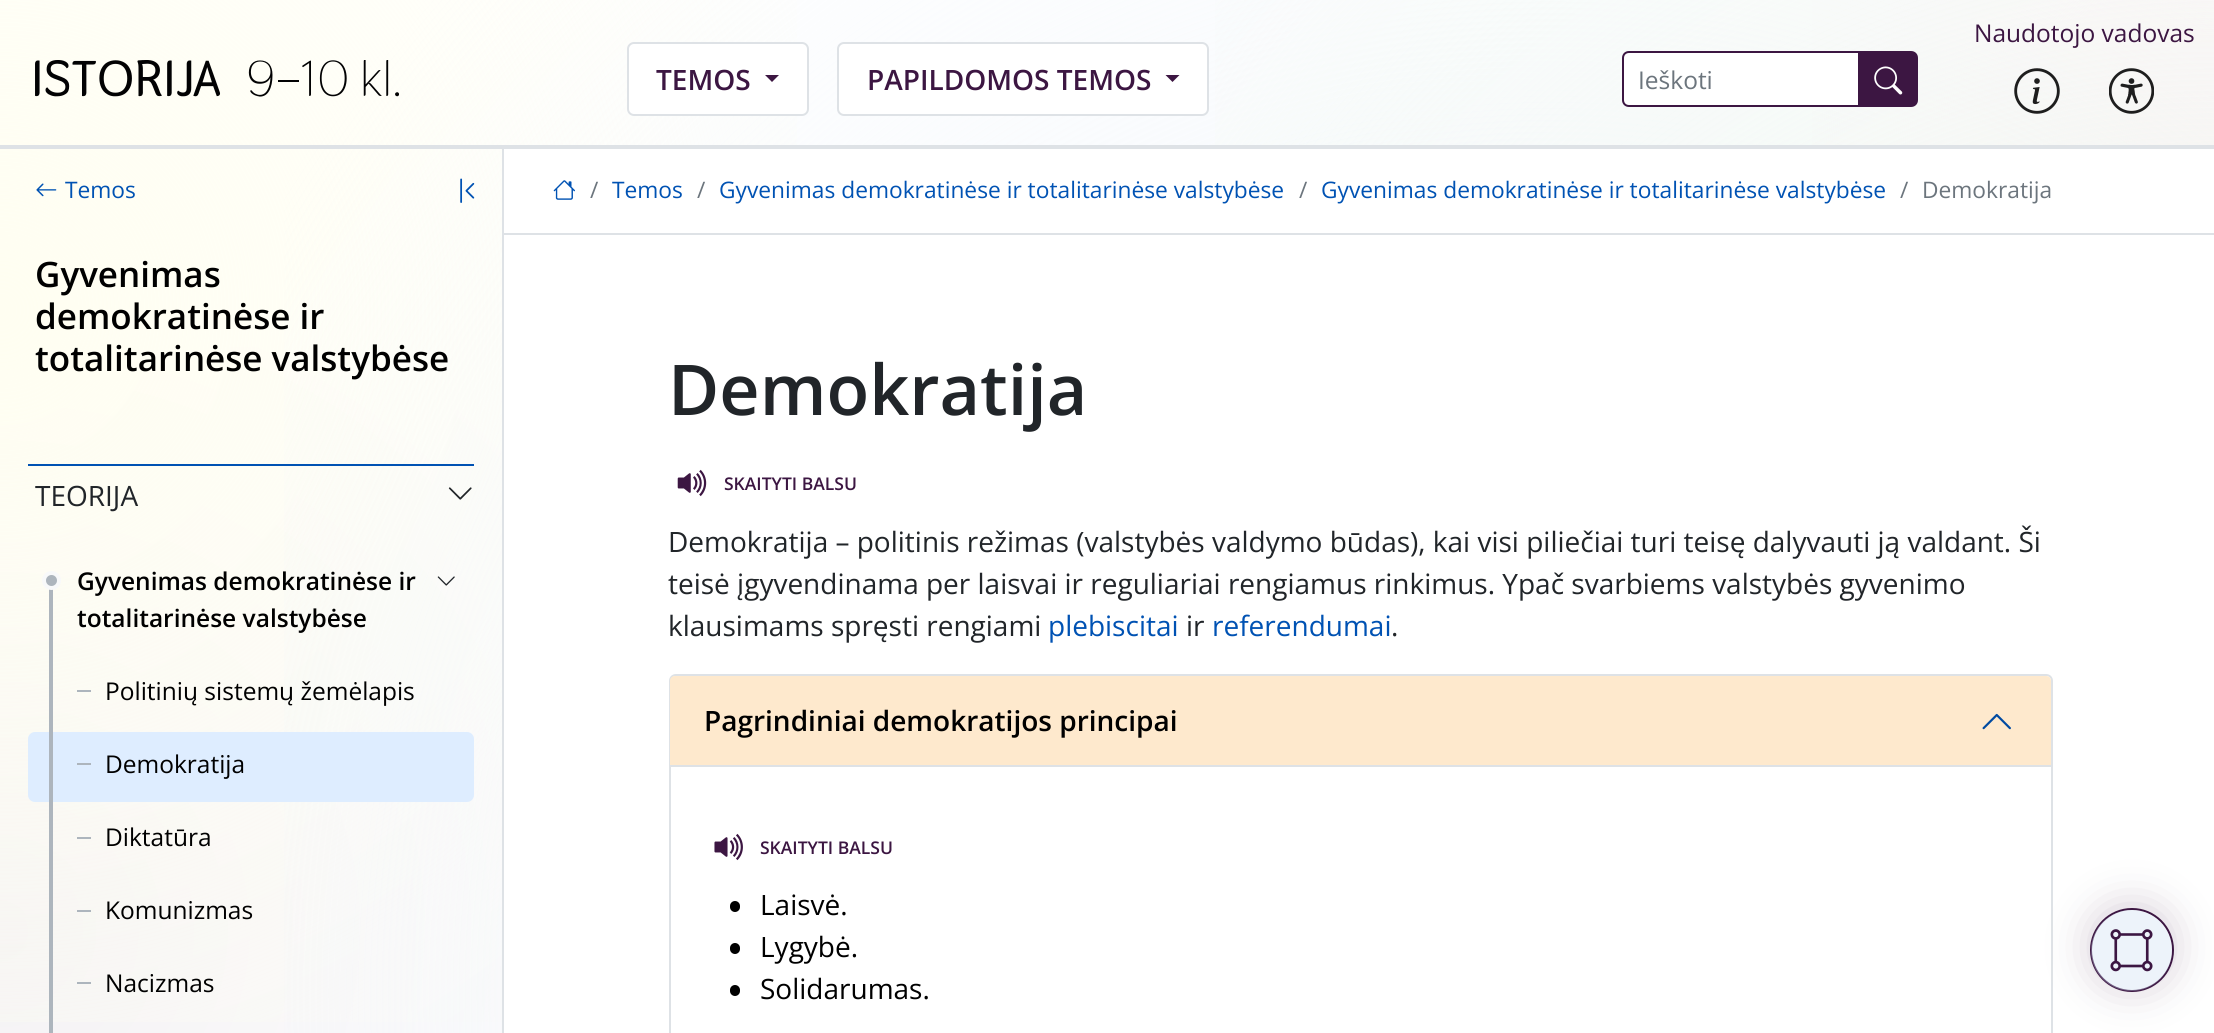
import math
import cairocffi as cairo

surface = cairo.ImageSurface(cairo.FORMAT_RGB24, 2214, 1033)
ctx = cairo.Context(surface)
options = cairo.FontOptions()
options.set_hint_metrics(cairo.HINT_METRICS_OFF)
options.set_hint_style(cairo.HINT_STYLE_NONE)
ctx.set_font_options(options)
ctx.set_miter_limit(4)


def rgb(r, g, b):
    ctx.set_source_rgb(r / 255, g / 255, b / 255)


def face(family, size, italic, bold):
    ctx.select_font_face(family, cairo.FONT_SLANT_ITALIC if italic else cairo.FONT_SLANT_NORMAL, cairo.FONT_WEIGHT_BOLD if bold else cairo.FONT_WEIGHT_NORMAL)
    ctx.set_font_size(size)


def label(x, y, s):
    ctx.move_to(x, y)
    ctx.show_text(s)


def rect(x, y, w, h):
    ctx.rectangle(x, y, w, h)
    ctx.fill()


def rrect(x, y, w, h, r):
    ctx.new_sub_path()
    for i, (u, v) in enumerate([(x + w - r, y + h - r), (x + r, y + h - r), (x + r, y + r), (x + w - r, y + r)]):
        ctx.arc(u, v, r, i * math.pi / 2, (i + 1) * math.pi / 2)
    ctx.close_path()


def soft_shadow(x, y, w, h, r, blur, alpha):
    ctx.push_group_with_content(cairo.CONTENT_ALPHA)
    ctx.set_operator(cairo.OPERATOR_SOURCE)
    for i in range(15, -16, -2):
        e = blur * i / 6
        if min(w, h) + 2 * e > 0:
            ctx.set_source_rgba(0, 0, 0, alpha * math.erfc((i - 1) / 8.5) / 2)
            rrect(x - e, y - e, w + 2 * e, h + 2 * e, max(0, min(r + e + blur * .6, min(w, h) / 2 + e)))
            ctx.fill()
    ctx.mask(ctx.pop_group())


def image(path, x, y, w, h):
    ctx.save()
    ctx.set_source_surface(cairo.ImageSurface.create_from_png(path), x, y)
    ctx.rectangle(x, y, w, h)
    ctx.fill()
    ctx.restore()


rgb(255, 255, 255)
ctx.paint()
gradient = cairo.RadialGradient(0, 931, 0, 0, 931, 2403)
gradient.add_color_stop_rgba(0, 0.957, 0.949, 0.957, 1)
gradient.add_color_stop_rgba(0.3, 1, 1, 1, 1)
ctx.set_source(gradient)
rect(0, 347, 577, 686)
gradient = cairo.RadialGradient(2216, 155, 0, 2216, 155, 2384)
gradient.add_color_stop_rgba(0, 1, 0.949, 0.969, 1)
gradient.add_color_stop_rgba(0.2, 1, 0.949, 0.969, 0)
ctx.set_source(gradient)
rect(1812, 0, 402, 145)
gradient = cairo.RadialGradient(0, 310, 0, 0, 310, 2331)
gradient.add_color_stop_rgba(0, 1, 0.996, 0.945, 1)
gradient.add_color_stop_rgba(0.4, 1, 0.996, 0.945, 0)
ctx.set_source(gradient)
rect(0, 0, 797, 1022)
gradient = cairo.RadialGradient(1551, 993, 0, 1551, 993, 1841)
gradient.add_color_stop_rgba(0, 0.941, 0.961, 0.984, 1)
gradient.add_color_stop_rgba(0.82, 0.941, 0.961, 0.984, 0)
ctx.set_source(gradient)
rect(284, 0, 1930, 1033)
gradient = cairo.RadialGradient(2216, 879, 0, 2216, 879, 2384)
gradient.add_color_stop_rgba(0, 0.953, 0.976, 0.941, 1)
gradient.add_color_stop_rgba(0.6, 0.953, 0.976, 0.941, 0)
ctx.set_source(gradient)
rect(1215, 0, 999, 145)
rgb(222, 226, 230)
rect(0, 145, 2214, 4)
image('image0.png', 35, 60, 364, 37)
face('Open Sans', 24.5, 0, 0)
rgb(60, 22, 66)
label(1974, 42, 'Naudotojo vadovas')
image('image1.png', 2014, 68, 46, 46)
image('image2.png', 2109, 68, 45, 46)
rgb(255, 255, 255)
rrect(628, 43, 180, 72, 6)
ctx.fill_preserve()
rgb(222, 226, 230)
ctx.stroke()
face('Open Sans SemiBold', 28, 0, 0)
rgb(60, 22, 66)
label(656, 90, 'TEMOS')
ctx.new_path()
ctx.move_to(765, 75)
ctx.line_to(779, 75)
ctx.line_to(772, 82)
ctx.close_path()
ctx.fill()
rgb(255, 255, 255)
rrect(838, 43, 370, 72, 6)
ctx.fill_preserve()
rgb(222, 226, 230)
ctx.stroke()
rgb(60, 22, 66)
label(867, 90, 'PAPILDOMOS TEMOS')
ctx.new_path()
ctx.move_to(1165.5, 75)
ctx.line_to(1179.5, 75)
ctx.line_to(1172.5, 82)
ctx.close_path()
ctx.fill()
rgb(255, 255, 255)
ctx.new_path()
ctx.move_to(1629, 52)
ctx.line_to(1859, 52)
ctx.line_to(1859, 106)
ctx.line_to(1629, 106)
ctx.curve_to(1625.5, 106, 1623, 103.5, 1623, 100)
ctx.line_to(1623, 58)
ctx.curve_to(1623, 54.5, 1625.5, 52, 1629, 52)
ctx.close_path()
ctx.fill_preserve()
rgb(60, 22, 66)
ctx.stroke()
face('Open Sans', 24.5, 0, 0)
rgb(108, 117, 125)
label(1638, 89, 'Ieškoti')
rgb(60, 22, 66)
ctx.new_path()
ctx.move_to(1860, 52)
ctx.line_to(1911, 52)
ctx.curve_to(1914.5, 52, 1917, 54.5, 1917, 58)
ctx.line_to(1917, 100)
ctx.curve_to(1917, 103.5, 1914.5, 106, 1911, 106)
ctx.line_to(1860, 106)
ctx.close_path()
ctx.fill_preserve()
ctx.stroke()
image('image3.png', 1874, 66, 29, 29)
rgb(222, 226, 230)
rect(502, 149, 2, 884)
image('image4.png', 36, 183, 21, 14)
face('Open Sans', 22.75, 0, 0)
rgb(0, 82, 179)
label(65, 198, 'Temos')
image('image5.png', 460, 178, 15, 25)
face('Open Sans SemiBold', 35, 0, 0)
rgb(0, 0, 0)
label(35, 287, 'Gyvenimas')
label(35, 329, 'demokratinėse ir')
label(35, 371, 'totalitarinėse valstybėse')
rgb(0, 82, 179)
rect(28, 464, 446, 2)
face('Open Sans', 28, 0, 0)
rgb(33, 37, 41)
label(35, 506, 'TEORIJA')
image('image6.png', 448, 487, 24, 13)
rgb(222, 237, 255)
rrect(28, 732, 446, 70, 7)
ctx.fill()
rgb(173, 181, 189)
rect(49, 589, 4, 444)
ctx.arc(51.5, 580.5, 7.5, 0, 2 * math.pi)
ctx.fill_preserve()
rgb(248, 249, 250)
ctx.set_line_width(4)
ctx.stroke()
face('Open Sans SemiBold', 24.5, 0, 0)
rgb(0, 0, 0)
label(77, 590, 'Gyvenimas demokratinėse ir')
label(77, 627, 'totalitarinėse valstybėse')
image('image7.png', 437, 576, 18, 10)
rgb(173, 181, 189)
rect(77, 690, 14, 2)
face('Open Sans', 24.5, 0, 0)
rgb(0, 0, 0)
label(105, 700, 'Politinių sistemų žemėlapis')
rgb(173, 181, 189)
rect(77, 763, 14, 2)
rgb(0, 0, 0)
label(105, 773, 'Demokratija')
rgb(173, 181, 189)
rect(77, 837, 14, 2)
rgb(0, 0, 0)
label(105, 846, 'Diktatūra')
rgb(173, 181, 189)
rect(77, 910, 14, 2)
rgb(0, 0, 0)
label(105, 919, 'Komunizmas')
rgb(173, 181, 189)
rect(77, 982, 14, 2)
rgb(0, 0, 0)
label(105, 992, 'Nacizmas')
rgb(255, 255, 255)
rect(504, 149, 1710, 884)
rgb(222, 226, 230)
rect(504, 233, 1710, 2)
image('image8.png', 553, 180, 22, 20)
face('Open Sans', 22.75, 0, 0)
rgb(108, 117, 125)
label(590, 198, '/')
rgb(0, 82, 179)
label(612, 198, 'Temos')
rgb(108, 117, 125)
label(697, 198, '/')
rgb(0, 82, 179)
label(719, 198, 'Gyvenimas demokratinėse ir totalitarinėse valstybėse')
rgb(108, 117, 125)
label(1299, 198, '/')
rgb(0, 82, 179)
label(1321, 198, 'Gyvenimas demokratinėse ir totalitarinėse valstybėse')
rgb(108, 117, 125)
label(1900, 198, '/')
label(1922, 198, 'Demokratija')
face('Open Sans SemiBold', 70, 0, 0)
rgb(33, 37, 41)
label(668, 415, 'Demokratija')
image('image9.png', 677, 469, 30, 28)
face('Open Sans SemiBold', 17.5, 0, 0)
rgb(60, 22, 66)
label(724, 490, 'SKAITYTI BALSU')
face('Open Sans', 28, 0, 0)
rgb(33, 37, 41)
label(668, 552, 'Demokratija – politinis režimas (valstybės valdymo būdas), kai visi piliečiai turi teisę dalyvauti ją valdant. Ši')
label(668, 594, 'teisė įgyvendinama per laisvai ir reguliariai rengiamus rinkimus. Ypač svarbiems valstybės gyvenimo')
label(668, 636, 'klausimams spręsti rengiami')
rgb(0, 82, 179)
label(1048, 636, 'plebiscitai')
rgb(33, 37, 41)
label(1186, 636, 'ir')
rgb(0, 82, 179)
label(1212, 636, 'referendumai')
rgb(33, 37, 41)
label(1391, 636, '.')
ctx.new_path()
ctx.move_to(676, 675)
ctx.line_to(2046, 675)
ctx.curve_to(2049.5, 675, 2052, 677.5, 2052, 681)
ctx.line_to(2052, 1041)
ctx.line_to(670, 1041)
ctx.line_to(670, 681)
ctx.curve_to(670, 677.5, 672.5, 675, 676, 675)
ctx.close_path()
rgb(222, 226, 230)
ctx.set_line_width(2)
ctx.stroke()
rgb(254, 233, 205)
ctx.new_path()
ctx.move_to(675, 676)
ctx.line_to(2046, 676)
ctx.curve_to(2049, 676, 2051, 678, 2051, 681)
ctx.line_to(2051, 767)
ctx.line_to(670, 767)
ctx.line_to(670, 681)
ctx.curve_to(670, 678, 672, 676, 675, 676)
ctx.close_path()
ctx.fill()
rgb(222, 226, 230)
rect(670, 765, 1381, 2)
face('Open Sans SemiBold', 28, 0, 0)
rgb(0, 0, 0)
label(704, 731, 'Pagrindiniai demokratijos principai')
image('image10.png', 1982, 713, 29, 17)
image('image11.png', 714, 833, 29, 28)
face('Open Sans SemiBold', 17.5, 0, 0)
rgb(60, 22, 66)
label(760, 854, 'SKAITYTI BALSU')
rgb(0, 0, 0)
rrect(730, 901, 10, 11, 5)
ctx.fill()
face('Open Sans', 28, 0, 0)
label(760, 915, 'Laisvė.')
rrect(730, 943, 10, 11, 5)
ctx.fill()
label(760, 957, 'Lygybė.')
rrect(730, 985, 10, 11, 5)
ctx.fill()
label(760, 999, 'Solidarumas.')
rgb(216, 208, 217)
soft_shadow(2090, 905, 84, 84, 42, 21, 1)
rgb(255, 255, 255)
ctx.arc(2132, 950, 41, 0, 2 * math.pi)
ctx.fill_preserve()
rgb(60, 22, 66)
ctx.stroke()
ctx.set_source_rgba(0.8, 0.863, 0.941, 0.35)
ctx.arc(2131.5, 950.5, 40.5, 0, 2 * math.pi)
ctx.fill()
image('image12.png', 2110, 929, 43, 43)
surface.write_to_png('render.png')
